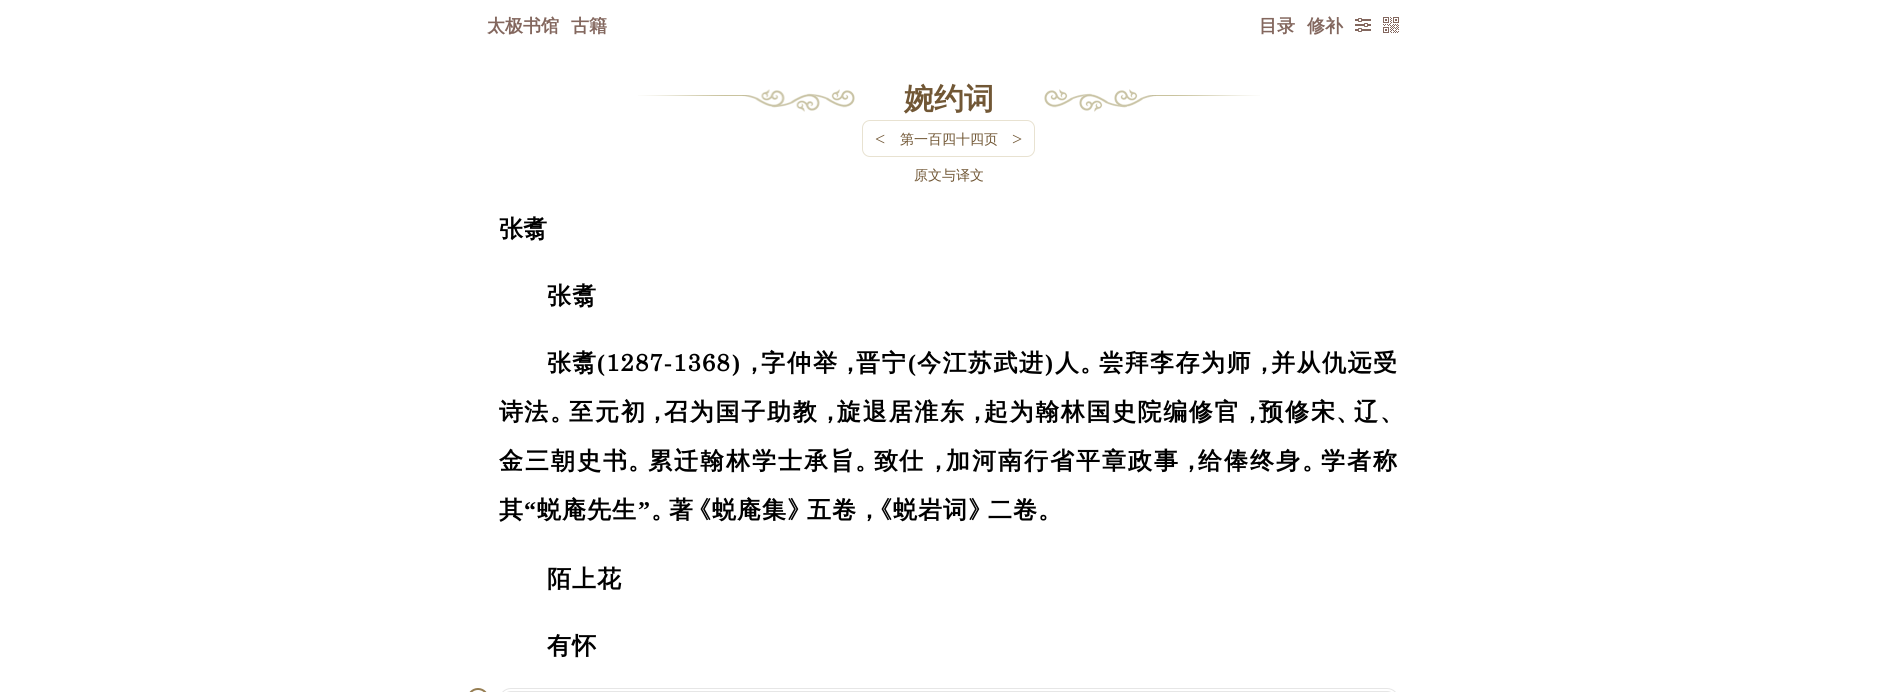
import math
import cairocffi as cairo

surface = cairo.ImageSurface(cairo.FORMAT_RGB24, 1897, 692)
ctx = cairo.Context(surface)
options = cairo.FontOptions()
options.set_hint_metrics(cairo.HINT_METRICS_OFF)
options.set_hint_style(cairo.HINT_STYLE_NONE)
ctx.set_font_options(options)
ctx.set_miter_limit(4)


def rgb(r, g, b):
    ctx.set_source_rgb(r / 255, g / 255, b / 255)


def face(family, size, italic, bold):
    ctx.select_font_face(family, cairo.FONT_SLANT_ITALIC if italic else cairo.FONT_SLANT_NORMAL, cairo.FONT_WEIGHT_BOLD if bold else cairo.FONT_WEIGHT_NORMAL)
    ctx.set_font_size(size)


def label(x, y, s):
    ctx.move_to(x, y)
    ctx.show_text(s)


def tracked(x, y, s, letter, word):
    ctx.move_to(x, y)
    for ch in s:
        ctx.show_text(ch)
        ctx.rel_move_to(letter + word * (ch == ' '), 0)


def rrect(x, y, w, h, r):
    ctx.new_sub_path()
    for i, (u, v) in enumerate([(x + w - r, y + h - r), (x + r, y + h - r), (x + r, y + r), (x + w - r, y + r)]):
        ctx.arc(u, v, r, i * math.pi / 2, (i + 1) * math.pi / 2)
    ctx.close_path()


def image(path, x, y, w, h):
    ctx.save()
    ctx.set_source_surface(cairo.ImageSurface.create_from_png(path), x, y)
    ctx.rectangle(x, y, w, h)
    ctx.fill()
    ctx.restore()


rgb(255, 255, 255)
ctx.paint()
face('WenQuanYi Zen Hei', 18, 0, 1)
rgb(131, 103, 94)
label(487, 32, '太极书馆')
label(571, 32, '古籍')
label(1259, 32, '目录')
label(1307, 32, '修补')
image('image0.png', 1355, 18, 16, 14)
image('image1.png', 1383, 17, 16, 16)
image('image2.png', 638, 89, 217, 23)
image('image3.png', 1044, 89, 216, 23)
face('WenQuanYi Zen Hei', 30, 0, 1)
rgb(113, 87, 53)
label(904, 109, '婉约词')
rrect(862.5, 120.5, 172, 36, 7.5)
rgb(232, 226, 209)
ctx.set_line_width(1)
ctx.stroke()
face('Liberation Serif', 18, 0, 0)
rgb(113, 87, 53)
label(875, 145, '<')
face('WenQuanYi Zen Hei Medium', 14, 0, 0)
label(900, 144, '第一百四十四页')
face('Liberation Serif', 18, 0, 0)
label(1012, 145, '>')
face('WenQuanYi Zen Hei', 24, 0, 1)
rgb(0, 0, 0)
label(499, 237, '张翥')
tracked(547, 304, '张翥', 1, 0)
tracked(547, 371, '张翥', 1, 0)
face('Liberation Serif', 24, 0, 1)
tracked(597, 371, '(', 1, 0)
face('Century', 24, 0, 1)
tracked(606, 371, '1287', 1, 0)
face('Liberation Serif', 24, 0, 1)
tracked(664, 371, '-', 1, 0)
face('Century', 24, 0, 1)
tracked(673, 371, '1368', 1, 0)
face('Liberation Serif', 24, 0, 1)
tracked(732, 371, ')', 1, 0)
face('WenQuanYi Zen Hei', 24, 0, 1)
tracked(761, 371, '字仲举', 2, 0)
tracked(856, 371, '晋宁', 1.5, 0)
face('Liberation Serif', 24, 0, 1)
tracked(908, 371, '(', 1.5, 0)
face('WenQuanYi Zen Hei', 24, 0, 1)
tracked(917, 371, '今江苏武进', 1.5, 0)
face('Liberation Serif', 24, 0, 1)
tracked(1045, 371, ')', 1.5, 0)
face('WenQuanYi Zen Hei', 24, 0, 1)
tracked(1055, 371, '人', 1.5, 0)
tracked(1099, 371, '尝拜李存为师', 1.5, 0)
tracked(1271, 371, '并从仇远受', 1.5, 0)
tracked(742, 371, '，', 1, 0)
tracked(838, 371, '，', 1, 0)
tracked(1080, 371, '。', 1, 0)
tracked(1252, 371, '，', 1, 0)
tracked(499, 420, '诗法', 1, 0)
tracked(550, 420, '。', 1, 0)
tracked(569, 420, '至元初', 2, 0)
tracked(645, 420, '，', 1, 0)
tracked(664, 420, '召为国子助教', 1.75, 0)
tracked(818, 420, '，', 1, 0)
tracked(837, 420, '旋退居淮东', 1.75, 0)
tracked(965, 420, '，', 1, 0)
tracked(984, 420, '起为翰林国史院编修官', 1.6, 0)
tracked(1240, 420, '，', 1, 0)
tracked(1259, 420, '预修宋', 2, 0)
tracked(1336, 420, '、', 1, 0)
tracked(1354, 420, '辽', 1, 0)
tracked(1380, 420, '、', 1, 0)
tracked(499, 469, '金三朝史书', 2, 0)
tracked(628, 469, '。', 1, 0)
tracked(648, 469, '累迁翰林学士承旨', 2, 0)
tracked(855, 469, '。', 1, 0)
tracked(874, 469, '致仕', 1, 0)
tracked(926, 469, '，', 1, 0)
tracked(946, 469, '加河南行省平章政事', 2, 0)
tracked(1179, 469, '，', 1, 0)
tracked(1198, 469, '给俸终身', 2, 0)
tracked(1302, 469, '。', 1, 0)
tracked(1321, 469, '学者称', 2, 0)
tracked(499, 518, '其', 1, 0)
face('Liberation Serif', 24, 0, 1)
tracked(524, 518, '“', 1, 0)
face('WenQuanYi Zen Hei', 24, 0, 1)
tracked(537, 518, '蜕庵先生', 1, 0)
face('Liberation Serif', 24, 0, 1)
tracked(638, 518, '”', 1, 0)
face('WenQuanYi Zen Hei', 24, 0, 1)
tracked(669, 518, '著', 1, 0)
tracked(687, 518, '《蜕庵集》', 1, 0)
tracked(807, 518, '五卷，', 1, 0)
tracked(868, 518, '《蜕岩词》', 1, 0)
tracked(988, 518, '二卷。', 1, 0)
tracked(651, 518, '。', 1, 0)
tracked(547, 587, '陌上花', 1, 0)
tracked(547, 654, '有怀', 1, 0)
rrect(468, 689, 20, 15, 10)
rgb(149, 125, 82)
ctx.set_line_width(2)
ctx.stroke()
rrect(499.5, 688.5, 899, 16, 11.5)
rgb(230, 230, 230)
ctx.set_line_width(1)
ctx.stroke()
rrect(502.5, 691.5, 893, 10, 8.5)
ctx.stroke()
face('WenQuanYi Zen Hei Medium', 14, 0, 0)
rgb(113, 87, 53)
label(914, 180, '原文与译文')
surface.write_to_png('render.png')
